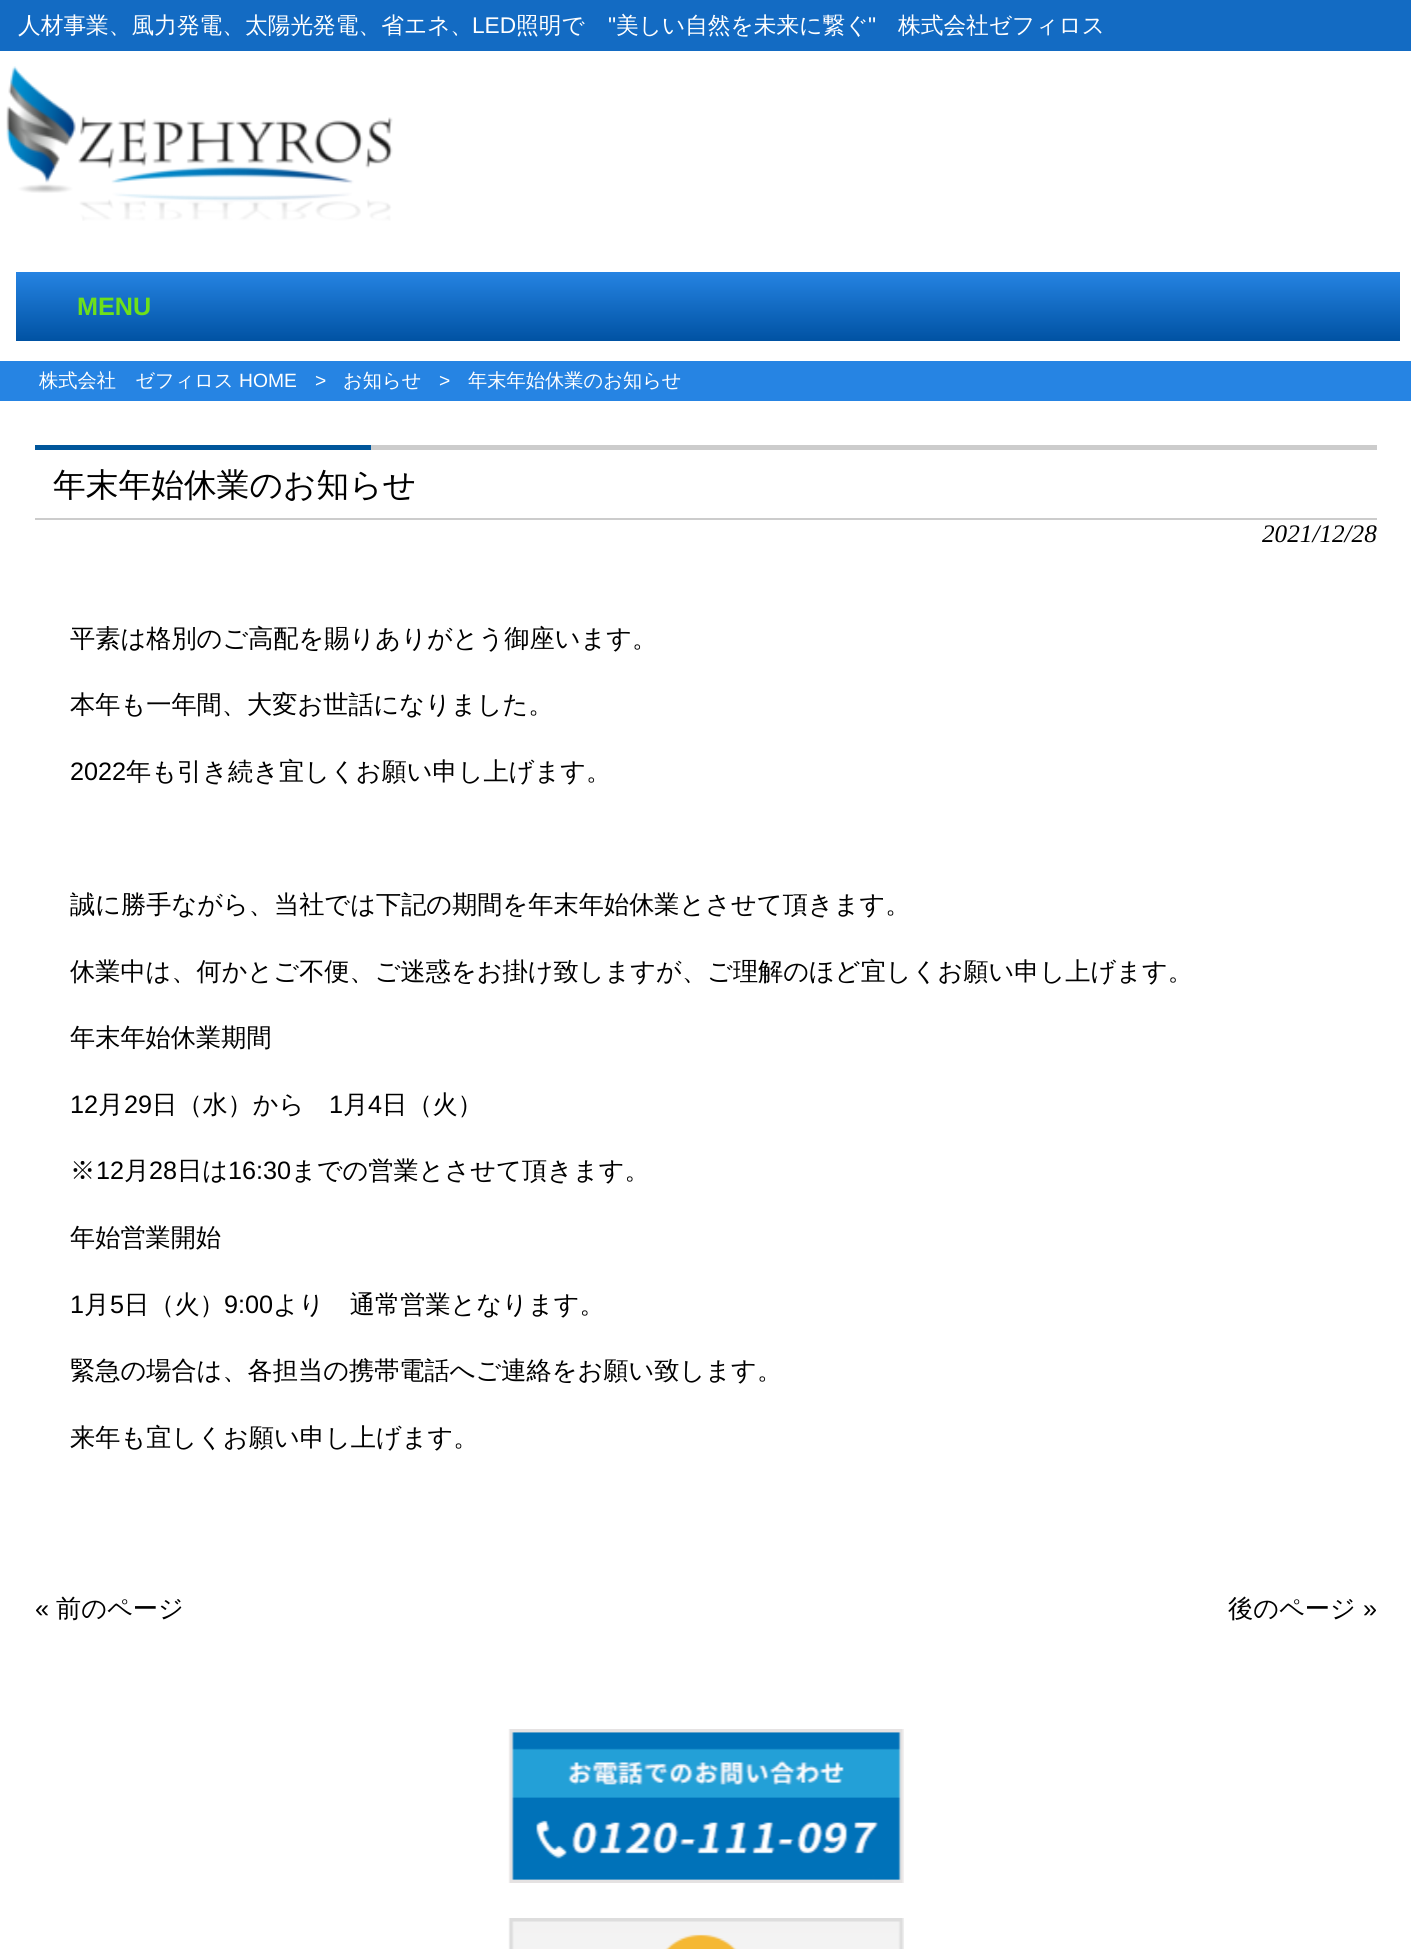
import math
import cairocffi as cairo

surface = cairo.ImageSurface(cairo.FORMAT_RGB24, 1411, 1949)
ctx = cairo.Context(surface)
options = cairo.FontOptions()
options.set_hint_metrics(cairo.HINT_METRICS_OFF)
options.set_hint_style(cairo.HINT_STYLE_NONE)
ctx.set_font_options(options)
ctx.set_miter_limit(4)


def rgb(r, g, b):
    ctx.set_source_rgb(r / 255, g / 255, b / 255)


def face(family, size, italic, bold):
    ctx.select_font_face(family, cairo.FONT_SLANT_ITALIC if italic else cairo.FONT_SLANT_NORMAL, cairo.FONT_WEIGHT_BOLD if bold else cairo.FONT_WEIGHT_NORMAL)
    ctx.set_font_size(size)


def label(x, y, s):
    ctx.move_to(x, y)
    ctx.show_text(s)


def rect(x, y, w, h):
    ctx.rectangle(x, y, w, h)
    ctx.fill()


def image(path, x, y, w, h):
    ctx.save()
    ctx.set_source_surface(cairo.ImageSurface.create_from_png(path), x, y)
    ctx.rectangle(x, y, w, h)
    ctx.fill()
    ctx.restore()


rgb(255, 255, 255)
ctx.paint()
rgb(19, 107, 195)
rect(0, 0, 1411, 51)
face('WenQuanYi Zen Hei Medium', 22.7, 0, 0)
rgb(255, 255, 255)
label(18, 33, '人材事業、風力発電、太陽光発電、省エネ、')
face('Liberation Sans', 22.7, 0, 0)
label(472, 33, 'LED')
face('WenQuanYi Zen Hei Medium', 22.7, 0, 0)
label(516, 33, '照明で')
face('Liberation Sans', 22.7, 0, 0)
label(608, 33, '"')
face('WenQuanYi Zen Hei Medium', 22.7, 0, 0)
label(616, 33, '美しい自然を未来に繋ぐ')
face('Liberation Sans', 22.7, 0, 0)
label(868, 33, '"')
face('WenQuanYi Zen Hei Medium', 22.7, 0, 0)
label(898, 33, '株式会社ゼフィロス')
image('image0.png', 6, 66, 387, 155)
gradient = cairo.LinearGradient(708, 271, 708, 341)
gradient.add_color_stop_rgba(0, 0.149, 0.518, 0.89, 1)
gradient.add_color_stop_rgba(1, 0, 0.322, 0.639, 1)
ctx.set_source(gradient)
rect(16, 272, 1384, 69)
face('Liberation Sans', 25.2, 0, 1)
rgb(110, 224, 26)
label(77, 315, 'MENU')
rgb(38, 132, 227)
rect(0, 361, 1411, 40)
face('WenQuanYi Zen Hei Medium', 19.25, 0, 0)
rgb(255, 255, 255)
label(39, 387, '株式会社　ゼフィロス')
face('Liberation Sans', 19.25, 0, 0)
label(239, 387, 'HOME')
label(315, 387, '>')
face('WenQuanYi Zen Hei Medium', 19.25, 0, 0)
label(343, 387, 'お知らせ')
face('Liberation Sans', 19.25, 0, 0)
label(439, 387, '>')
face('WenQuanYi Zen Hei Medium', 19.25, 0, 0)
label(468, 387, '年末年始休業のお知らせ')
rgb(204, 204, 204)
rect(35, 518, 1342, 2)
rgb(0, 86, 155)
rect(35, 445, 336, 5)
rgb(204, 204, 204)
rect(371, 445, 1006, 5)
face('WenQuanYi Zen Hei Medium', 32.75, 0, 0)
rgb(0, 0, 0)
label(53, 496, '年末年始休業のお知らせ')
face('Liberation Serif', 25.2, 1, 0)
label(1262, 542, '2021/12/28')
face('WenQuanYi Zen Hei Medium', 25.2, 0, 0)
label(70, 647, '平素は格別のご高配を賜りありがとう御座います。')
label(70, 713, '本年も一年間、大変お世話になりました。')
face('Liberation Sans', 25.2, 0, 0)
label(70, 780, '2022')
face('WenQuanYi Zen Hei Medium', 25.2, 0, 0)
label(126, 780, '年も引き続き宜しくお願い申し上げます。')
label(70, 913, '誠に勝手ながら、当社では下記の期間を年末年始休業とさせて頂きます。')
label(70, 980, '休業中は、何かとご不便、ご迷惑をお掛け致しますが、ご理解のほど宜しくお願い申し上げます。')
label(70, 1046, '年末年始休業期間')
face('Liberation Sans', 25.2, 0, 0)
label(70, 1113, '12')
face('WenQuanYi Zen Hei Medium', 25.2, 0, 0)
label(98, 1113, '月')
face('Liberation Sans', 25.2, 0, 0)
label(124, 1113, '29')
face('WenQuanYi Zen Hei Medium', 25.2, 0, 0)
label(152, 1113, '日（水）から')
face('Liberation Sans', 25.2, 0, 0)
label(329, 1113, '1')
face('WenQuanYi Zen Hei Medium', 25.2, 0, 0)
label(343, 1113, '月')
face('Liberation Sans', 25.2, 0, 0)
label(368, 1113, '4')
face('WenQuanYi Zen Hei Medium', 25.2, 0, 0)
label(382, 1113, '日（火）')
label(70, 1179, '※')
face('Liberation Sans', 25.2, 0, 0)
label(96, 1179, '12')
face('WenQuanYi Zen Hei Medium', 25.2, 0, 0)
label(124, 1179, '月')
face('Liberation Sans', 25.2, 0, 0)
label(149, 1179, '28')
face('WenQuanYi Zen Hei Medium', 25.2, 0, 0)
label(177, 1179, '日は')
face('Liberation Sans', 25.2, 0, 0)
label(228, 1179, '16:30')
face('WenQuanYi Zen Hei Medium', 25.2, 0, 0)
label(291, 1179, 'までの営業とさせて頂きます。')
label(70, 1246, '年始営業開始')
face('Liberation Sans', 25.2, 0, 0)
label(70, 1313, '1')
face('WenQuanYi Zen Hei Medium', 25.2, 0, 0)
label(84, 1313, '月')
face('Liberation Sans', 25.2, 0, 0)
label(110, 1313, '5')
face('WenQuanYi Zen Hei Medium', 25.2, 0, 0)
label(124, 1313, '日（火）')
face('Liberation Sans', 25.2, 0, 0)
label(224, 1313, '9:00')
face('WenQuanYi Zen Hei Medium', 25.2, 0, 0)
label(273, 1313, 'より　通常営業となります。')
label(70, 1379, '緊急の場合は、各担当の携帯電話へご連絡をお願い致します。')
label(70, 1446, '来年も宜しくお願い申し上げます。')
face('Liberation Sans', 25.2, 0, 0)
label(35, 1617, '«')
face('WenQuanYi Zen Hei Medium', 25.2, 0, 0)
label(56, 1617, '前のページ')
label(1228, 1617, '後のページ')
face('Liberation Sans', 25.2, 0, 0)
label(1363, 1617, '»')
image('image1.png', 508, 1729, 396, 154)
image('image2.png', 508, 1918, 396, 31)
surface.write_to_png('render.png')
